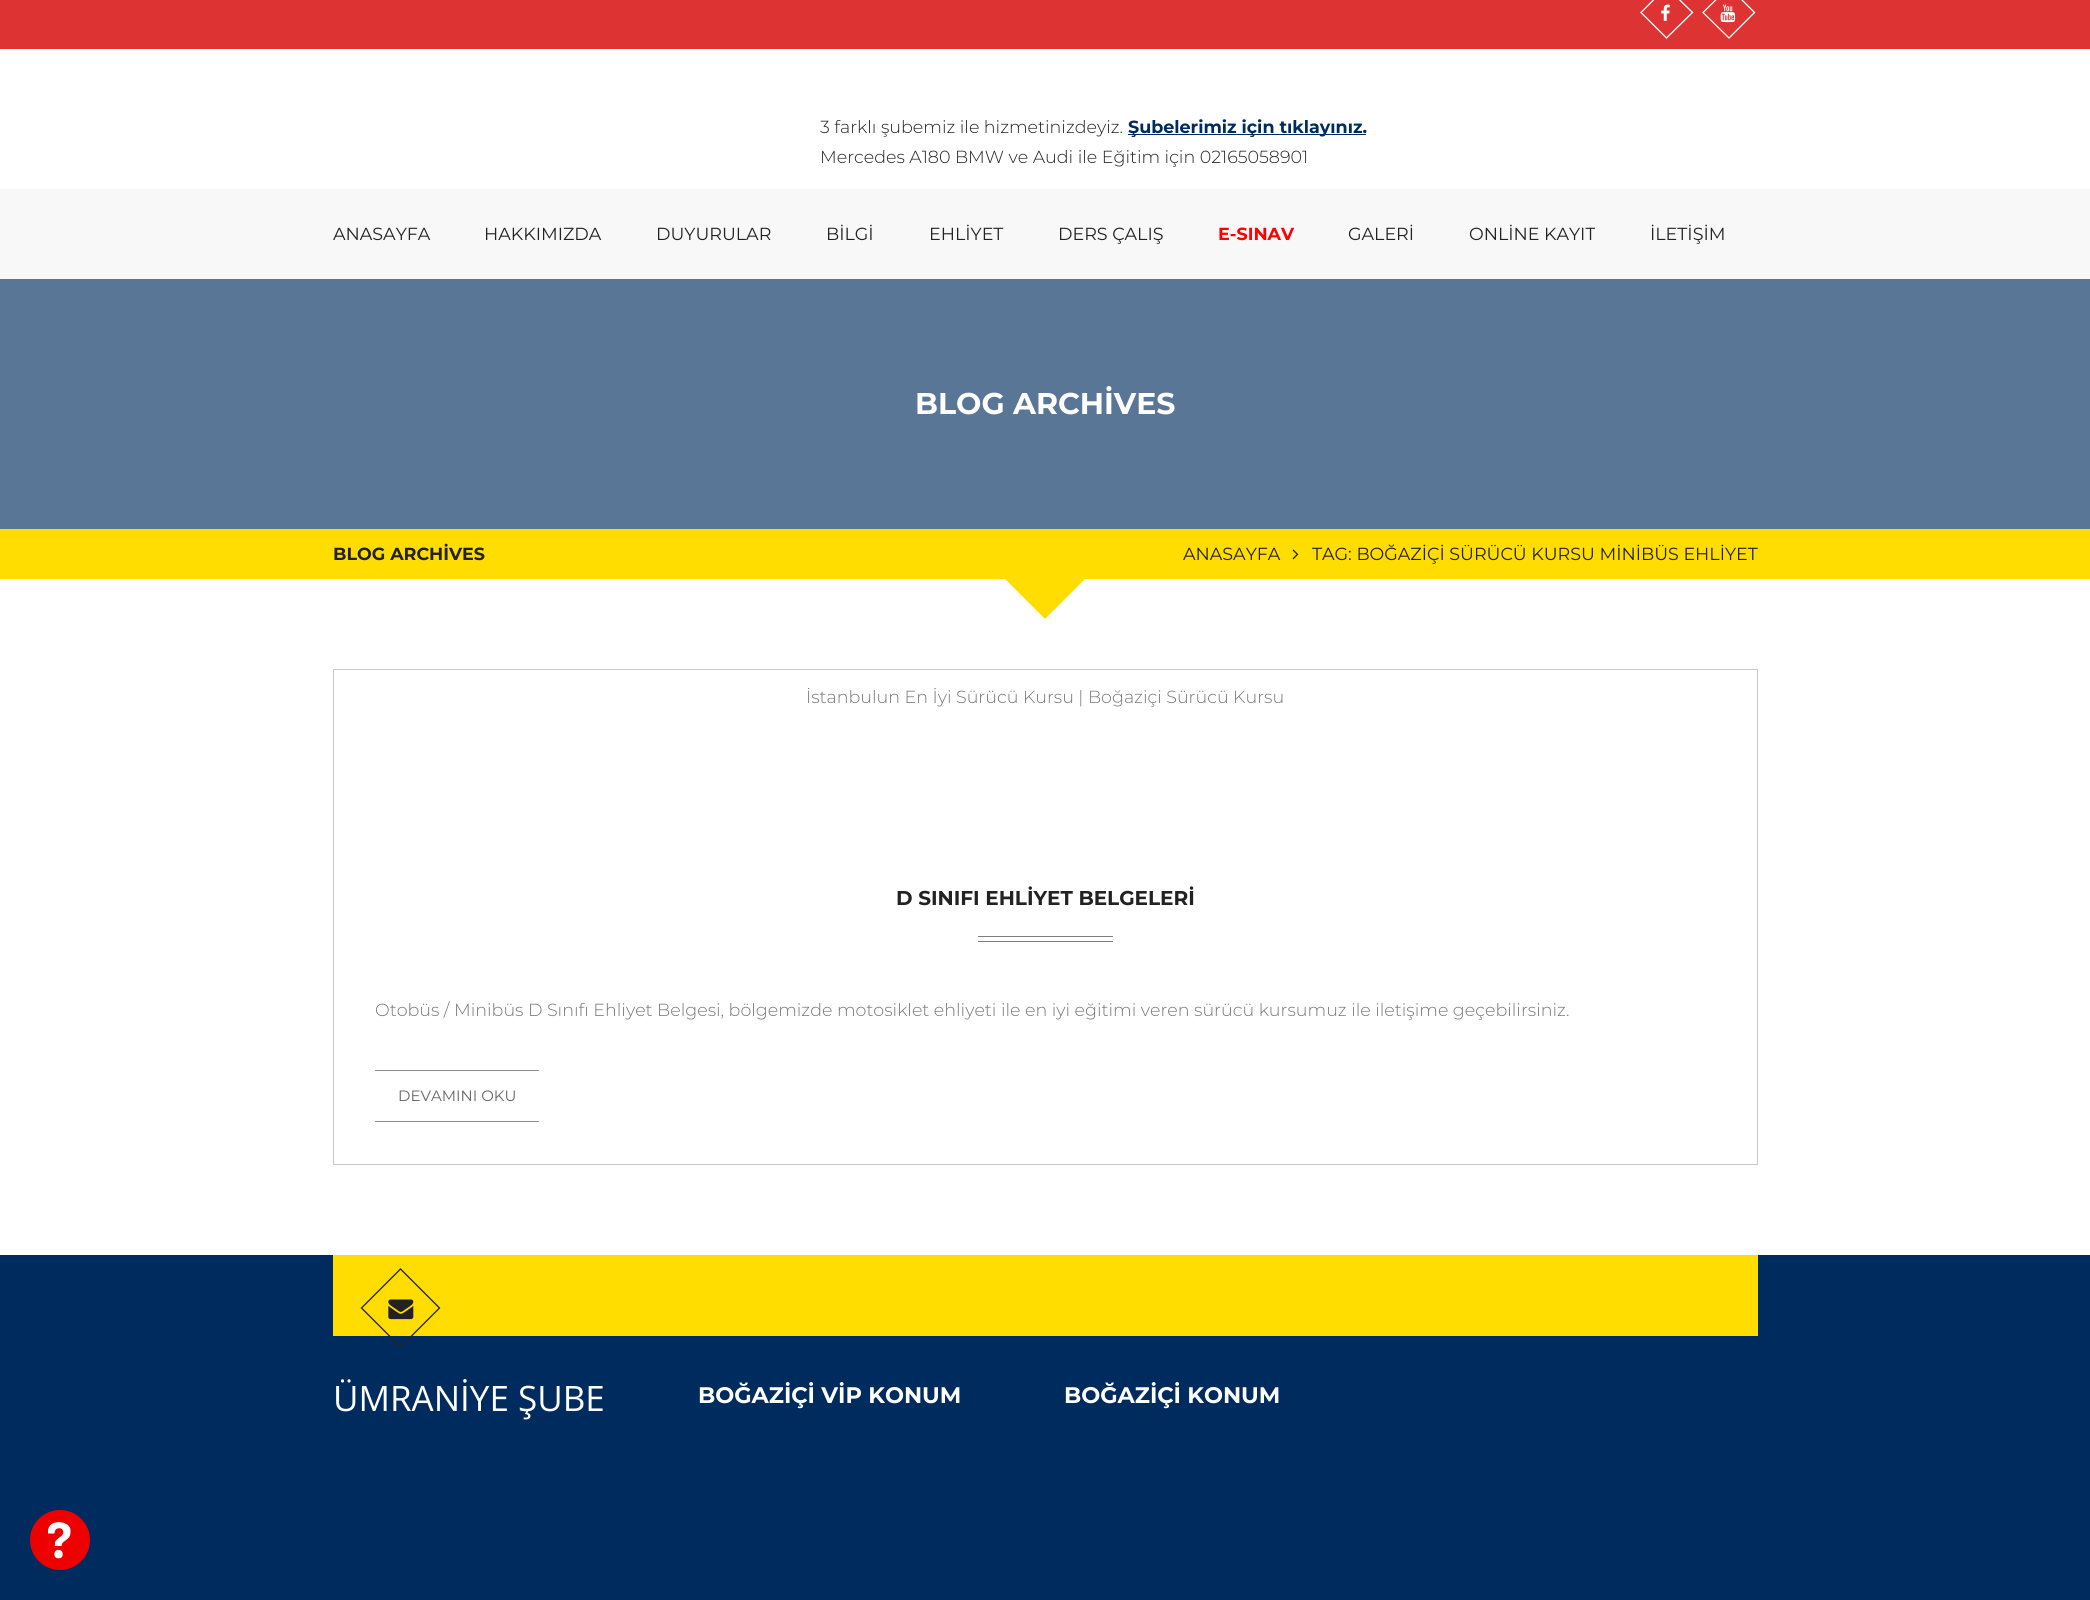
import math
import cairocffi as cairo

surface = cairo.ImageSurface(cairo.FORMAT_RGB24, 2090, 1600)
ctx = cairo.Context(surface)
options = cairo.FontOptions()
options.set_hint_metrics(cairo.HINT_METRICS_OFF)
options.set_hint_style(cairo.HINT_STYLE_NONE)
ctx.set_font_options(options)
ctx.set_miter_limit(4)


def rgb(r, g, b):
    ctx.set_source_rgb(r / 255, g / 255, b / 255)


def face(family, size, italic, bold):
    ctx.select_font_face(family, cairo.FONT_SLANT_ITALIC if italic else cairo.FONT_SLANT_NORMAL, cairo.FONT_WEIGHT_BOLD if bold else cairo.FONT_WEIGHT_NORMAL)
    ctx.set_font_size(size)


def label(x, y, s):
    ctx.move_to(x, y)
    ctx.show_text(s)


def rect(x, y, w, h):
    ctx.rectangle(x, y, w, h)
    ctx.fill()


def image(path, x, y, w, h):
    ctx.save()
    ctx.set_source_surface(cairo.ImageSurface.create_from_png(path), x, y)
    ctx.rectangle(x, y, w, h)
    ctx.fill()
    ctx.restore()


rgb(255, 255, 255)
ctx.paint()
rgb(221, 51, 51)
rect(0, 0, 2090, 49)
ctx.new_path()
ctx.move_to(1666.5, -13)
ctx.line_to(1692.5, 12.5)
ctx.line_to(1666.5, 38)
ctx.line_to(1641, 12.5)
ctx.close_path()
rgb(255, 255, 255)
ctx.set_line_width(1.3)
ctx.stroke()
image('image0.png', 1661, 4, 9, 17)
ctx.new_path()
ctx.move_to(1729, -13)
ctx.line_to(1754.5, 12.5)
ctx.line_to(1729, 38)
ctx.line_to(1703, 12.5)
ctx.close_path()
ctx.stroke()
image('image1.png', 1720, 4, 16, 19)
face('Montserrat Light', 17.5, 0, 0)
rgb(34, 34, 34)
label(820, 133, '3 farklı şubemiz ile hizmetinizdeyiz.')
rgb(0, 43, 94)
rect(1128, 134, 238, 1)
face('Montserrat', 17.5, 0, 1)
label(1128, 133, 'Şubelerimiz için tıklayınız.')
face('Montserrat Light', 17.5, 0, 0)
rgb(34, 34, 34)
label(820, 163, 'Mercedes A180 BMW ve Audi ile Eğitim için 02165058901')
rgb(248, 248, 248)
rect(0, 189, 2090, 90)
face('Montserrat', 17.5, 0, 0)
rgb(34, 34, 34)
label(333, 240, 'ANASAYFA')
label(484, 240, 'HAKKIMIZDA')
label(656, 240, 'DUYURULAR')
label(826, 240, 'BİLGİ')
label(929, 240, 'EHLİYET')
label(1058, 240, 'DERS ÇALIŞ')
face('Montserrat', 17.5, 0, 1)
rgb(255, 0, 0)
label(1218, 240, 'E-SINAV')
face('Montserrat', 17.5, 0, 0)
rgb(34, 34, 34)
label(1348, 240, 'GALERİ')
label(1469, 240, 'ONLİNE KAYIT')
label(1650, 240, 'İLETİŞİM')
rgb(90, 118, 151)
rect(0, 279, 2090, 250)
face('Montserrat', 30, 0, 1)
rgb(255, 255, 255)
label(915, 414, 'BLOG ARCHİVES')
rgb(255, 221, 0)
rect(0, 529, 2090, 50)
face('Montserrat', 17.5, 0, 1)
rgb(34, 34, 34)
label(333, 560, 'BLOG ARCHİVES')
face('Montserrat', 17.5, 0, 0)
label(1183, 560, 'ANASAYFA')
image('image2.png', 1292, 549, 7, 11)
label(1312, 560, 'TAG: BOĞAZİÇİ SÜRÜCÜ KURSU MİNİBÜS EHLİYET')
rgb(255, 221, 0)
ctx.new_path()
ctx.move_to(1005, 579)
ctx.line_to(1085, 579)
ctx.line_to(1045, 619)
ctx.close_path()
ctx.fill()
ctx.rectangle(333.5, 669.5, 1424, 495)
rgb(201, 201, 201)
ctx.set_line_width(1)
ctx.stroke()
face('Montserrat Light', 17.5, 0, 0)
rgb(119, 119, 119)
label(806, 703, 'İstanbulun En İyi Sürücü Kursu | Boğaziçi Sürücü Kursu')
face('Montserrat', 20, 0, 1)
rgb(34, 34, 34)
label(896, 905, 'D SINIFI EHLİYET BELGELERİ')
rgb(130, 124, 124)
rect(978, 936, 135, 1)
rect(978, 941, 135, 1)
face('Montserrat Light', 17.5, 0, 0)
rgb(119, 119, 119)
label(375, 1016, 'Otobüs / Minibüs D Sınıfı Ehliyet Belgesi, bölgemizde motosiklet ehliyeti ile en iyi eğitimi veren sürücü kursumuz ile iletişime geçebilirsiniz.')
rgb(140, 140, 140)
rect(375, 1070, 164, 1)
rect(375, 1121, 164, 1)
face('Montserrat', 15, 0, 0)
rgb(102, 102, 102)
label(398, 1101, 'DEVAMINI OKU')
rgb(0, 43, 94)
rect(0, 1255, 2090, 345)
rgb(255, 221, 0)
rect(333, 1255, 1425, 81)
ctx.new_path()
ctx.move_to(400.5, 1269)
ctx.line_to(439.5, 1308)
ctx.line_to(400.5, 1347)
ctx.line_to(361.5, 1308)
ctx.close_path()
rgb(34, 34, 34)
ctx.set_line_width(1.3)
ctx.stroke()
image('image3.png', 388, 1299, 26, 21)
face('Open Sans', 35, 0, 0)
rgb(255, 255, 255)
label(333, 1411, 'ÜMRANİYE ŞUBE')
face('Montserrat', 22.5, 0, 1)
label(698, 1403, 'BOĞAZİÇİ VİP KONUM')
label(1064, 1403, 'BOĞAZİÇİ KONUM')
rgb(239, 0, 0)
ctx.new_path()
ctx.arc(60, 1540, 30, 0, 2 * math.pi)
ctx.fill()
image('image4.png', 48, 1522, 23, 37)
surface.write_to_png('render.png')
